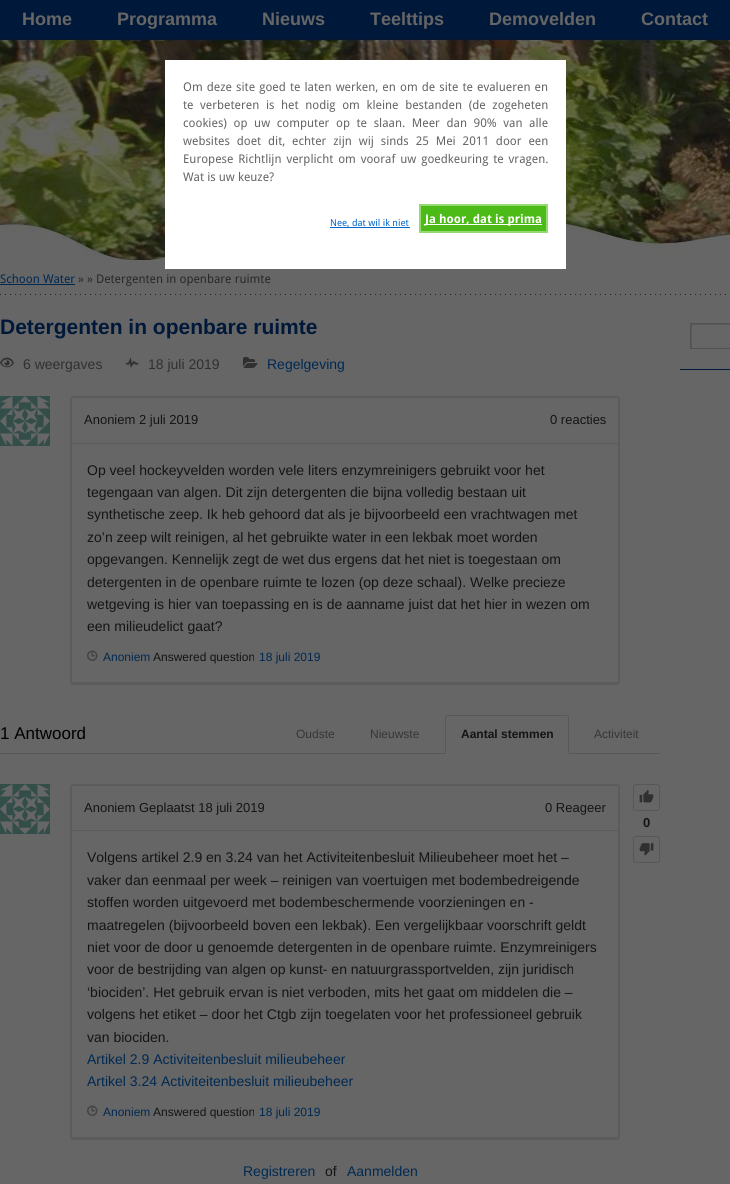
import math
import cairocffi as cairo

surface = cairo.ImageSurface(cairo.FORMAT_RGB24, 730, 1184)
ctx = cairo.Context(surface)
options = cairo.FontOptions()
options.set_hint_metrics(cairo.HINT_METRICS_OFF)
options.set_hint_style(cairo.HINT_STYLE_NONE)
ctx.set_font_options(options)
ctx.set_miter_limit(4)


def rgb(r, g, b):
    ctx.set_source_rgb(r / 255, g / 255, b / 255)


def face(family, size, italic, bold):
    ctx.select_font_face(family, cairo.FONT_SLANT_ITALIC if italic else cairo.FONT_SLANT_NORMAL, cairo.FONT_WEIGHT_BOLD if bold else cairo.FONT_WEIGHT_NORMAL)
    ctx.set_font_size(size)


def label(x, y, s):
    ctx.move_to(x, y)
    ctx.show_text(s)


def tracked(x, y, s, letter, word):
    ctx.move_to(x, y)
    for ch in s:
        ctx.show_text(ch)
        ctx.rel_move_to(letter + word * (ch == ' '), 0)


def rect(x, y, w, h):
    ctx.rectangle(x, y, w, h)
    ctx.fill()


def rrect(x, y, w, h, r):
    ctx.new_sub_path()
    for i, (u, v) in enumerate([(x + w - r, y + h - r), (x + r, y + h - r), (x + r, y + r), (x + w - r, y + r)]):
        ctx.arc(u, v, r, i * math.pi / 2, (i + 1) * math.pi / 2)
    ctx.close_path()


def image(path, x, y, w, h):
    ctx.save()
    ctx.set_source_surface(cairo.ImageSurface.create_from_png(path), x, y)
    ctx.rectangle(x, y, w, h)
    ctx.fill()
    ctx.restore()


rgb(102, 102, 102)
ctx.paint()
image('image0.png', 0, 38, 730, 222)
rgb(0, 24, 57)
rect(0, 0, 730, 38)
face('Liberation Sans', 18, 0, 1)
rgb(102, 102, 102)
label(22, 25, 'Home')
label(117, 25, 'Programma')
label(262, 25, 'Nieuws')
label(370, 25, 'Teelttips')
label(489, 25, 'Demovelden')
label(641, 25, 'Contact')
image('image1.png', 161, 122, 4, 47)
face('Droid Sans', 12, 0, 0)
rgb(0, 41, 82)
label(0, 283, 'Schoon Water')
rect(0, 284, 75, 1)
rgb(41, 41, 41)
label(78, 283, '» » Detergenten in openbare ruimte')
image('image2.png', 0, 294, 726, 1)
face('Liberation Sans', 21, 0, 1)
rgb(0, 24, 57)
label(0, 334, 'Detergenten in openbare ruimte')
image('image3.png', 0, 357, 14, 11)
face('Liberation Sans', 14, 0, 0)
rgb(48, 48, 48)
label(23, 369, '6 weergaves')
image('image4.png', 126, 357, 13, 11)
label(148, 369, '18 juli 2019')
image('image5.png', 243, 357, 15, 11)
rgb(0, 41, 82)
label(267, 369, 'Regelgeving')
image('image6.png', 0, 396, 50, 50)
rrect(71, 397, 548, 287, 2)
rgb(92, 92, 92)
ctx.stroke()
rgb(90, 90, 90)
rect(72, 443, 546, 1)
face('Liberation Sans', 13, 0, 0)
rgb(20, 20, 20)
label(84, 424, 'Anoniem 2 juli 2019')
label(550, 424, '0 reacties')
face('Liberation Sans', 14, 0, 0)
label(87, 475, 'Op veel hockeyvelden worden vele liters enzymreinigers gebruikt voor het')
label(87, 497, 'tegengaan van algen. Dit zijn detergenten die bijna volledig bestaan uit')
label(87, 519, 'synthetische zeep. Ik heb gehoord dat als je bijvoorbeeld een vrachtwagen met')
label(87, 542, 'zo’n zeep wilt reinigen, al het gebruikte water in een lekbak moet worden')
label(87, 564, 'opgevangen. Kennelijk zegt de wet dus ergens dat het niet is toegestaan om')
label(87, 587, 'detergenten in de openbare ruimte te lozen (op deze schaal). Welke precieze')
label(87, 609, 'wetgeving is hier van toepassing en is de aanname juist dat het hier in wezen om')
label(87, 631, 'een milieudelict gaat?')
image('image7.png', 87, 650, 11, 11)
face('Liberation Sans', 12, 0, 0)
rgb(0, 41, 82)
label(103, 661, 'Anoniem')
rgb(20, 20, 20)
label(153, 661, 'Answered question')
rgb(0, 41, 82)
label(259, 661, '18 juli 2019')
ctx.set_source_rgba(0, 0, 0, 0.1)
rect(72, 682, 546, 1)
rgb(88, 88, 88)
rect(0, 753, 660, 1)
face('Liberation Sans', 17, 0, 0)
rgb(0, 0, 0)
label(0, 739, '1 Antwoord')
face('Liberation Sans', 12, 0, 0)
rgb(54, 54, 54)
label(296, 738, 'Oudste')
label(370, 738, 'Nieuwste')
rgb(88, 88, 88)
ctx.new_path()
ctx.move_to(447, 715)
ctx.line_to(446, 716)
ctx.line_to(447, 716)
ctx.line_to(568, 716)
ctx.line_to(567, 715)
ctx.close_path()
ctx.fill()
ctx.new_path()
ctx.move_to(569, 754)
ctx.line_to(569, 717)
ctx.line_to(568.5, 715.5)
ctx.line_to(568, 716)
ctx.line_to(568, 753)
ctx.close_path()
ctx.fill()
rgb(102, 102, 102)
ctx.new_path()
ctx.move_to(569, 754)
ctx.line_to(568, 753)
ctx.line_to(446, 753)
ctx.line_to(445, 754)
ctx.close_path()
ctx.fill()
rgb(88, 88, 88)
ctx.new_path()
ctx.move_to(445, 754)
ctx.line_to(446, 753)
ctx.line_to(446, 717)
ctx.line_to(446.5, 716.5)
ctx.line_to(445.5, 715.5)
ctx.line_to(445, 717)
ctx.close_path()
ctx.fill()
face('Liberation Sans', 12, 0, 1)
rgb(20, 20, 20)
label(461, 738, 'Aantal stemmen')
face('Liberation Sans', 12, 0, 0)
rgb(54, 54, 54)
label(594, 738, 'Activiteit')
image('image6.png', 0, 784, 50, 50)
rrect(71, 785, 548, 354, 2)
rgb(92, 92, 92)
ctx.stroke()
rgb(90, 90, 90)
rect(72, 830, 546, 1)
face('Liberation Sans', 13, 0, 0)
rgb(20, 20, 20)
label(84, 812, 'Anoniem Geplaatst 18 juli 2019')
label(545, 812, '0 Reageer')
face('Liberation Sans', 14, 0, 0)
label(87, 862, 'Volgens artikel 2.9 en 3.24 van het Activiteitenbesluit Milieubeheer moet het –')
label(87, 885, 'vaker dan eenmaal per week – reinigen van voertuigen met bodembedreigende')
label(87, 907, 'stoffen worden uitgevoerd met bodembeschermende voorzieningen en -')
label(87, 930, 'maatregelen (bijvoorbeeld boven een lekbak). Een vergelijkbaar voorschrift geldt')
label(87, 952, 'niet voor de door u genoemde detergenten in de openbare ruimte. Enzymreinigers')
label(87, 974, 'voor de bestrijding van algen op kunst- en natuurgrassportvelden, zijn juridisch')
label(87, 997, '‘biociden’. Het gebruik ervan is niet verboden, mits het gaat om middelen die –')
label(87, 1019, 'volgens het etiket – door het Ctgb zijn toegelaten voor het professioneel gebruik')
label(87, 1042, 'van biociden.')
rgb(0, 41, 82)
label(87, 1064, 'Artikel 2.9 Activiteitenbesluit milieubeheer')
label(87, 1086, 'Artikel 3.24 Activiteitenbesluit milieubeheer')
image('image7.png', 87, 1105, 11, 11)
face('Liberation Sans', 12, 0, 0)
label(103, 1116, 'Anoniem')
rgb(20, 20, 20)
label(153, 1116, 'Answered question')
rgb(0, 41, 82)
label(259, 1116, '18 juli 2019')
ctx.set_source_rgba(0, 0, 0, 0.1)
rect(72, 1137, 546, 1)
rrect(633.5, 784.5, 26, 26, 2.5)
rgb(88, 88, 88)
ctx.set_line_width(1)
ctx.stroke()
image('image8.png', 639, 790, 15, 13)
face('Liberation Sans', 13, 0, 1)
rgb(20, 20, 20)
label(643, 827, '0')
rrect(633.5, 836.5, 26, 26, 2.5)
rgb(88, 88, 88)
ctx.stroke()
image('image9.png', 639, 843, 15, 13)
face('Liberation Sans', 14, 0, 0)
rgb(0, 41, 82)
label(243, 1176, 'Registreren')
rgb(20, 20, 20)
label(325, 1176, 'of')
rgb(0, 41, 82)
label(347, 1176, 'Aanmelden')
rgb(0, 24, 57)
rect(680, 369, 50, 1)
ctx.save()
ctx.rectangle(691, 324, 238, 24)
ctx.clip()
rgb(90, 90, 90)
ctx.set_fill_rule(cairo.FILL_RULE_EVEN_ODD)
ctx.new_path()
ctx.move_to(592, 225)
ctx.line_to(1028, 225)
ctx.line_to(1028, 447)
ctx.line_to(592, 447)
ctx.close_path()
ctx.move_to(692, 325)
ctx.line_to(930, 325)
ctx.line_to(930, 349)
ctx.line_to(692, 349)
ctx.close_path()
ctx.fill()
ctx.restore()
ctx.rectangle(690.5, 323.5, 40, 25)
rgb(82, 82, 82)
ctx.stroke()
rgb(255, 255, 255)
rect(165, 60, 401, 209)
face('Droid Sans', 12, 0, 0)
rgb(102, 102, 102)
tracked(183, 91, 'Om deze site goed te laten werken, en om de site te evalueren en', 0, 1)
tracked(183, 109, 'te verbeteren is het nodig om kleine bestanden (de zogeheten', 0, 3.5)
tracked(183, 127, 'cookies) op uw computer op te slaan. Meer dan 90% van alle', 0, 3.5)
tracked(183, 145, 'websites doet dit, echter zijn wij sinds 25 Mei 2011 door een', 0, 3.75)
tracked(183, 163, 'Europese Richtlijn verplicht om vooraf uw goedkeuring te vragen.', 0, 1.75)
label(183, 181, 'Wat is uw keuze?')
rgb(0, 102, 204)
rect(330, 227, 80, 1)
face('Droid Sans', 9.5, 0, 0)
label(330, 226, 'Nee, dat wil ik niet')
rgb(76, 187, 23)
ctx.rectangle(420, 205, 127, 27)
ctx.fill_preserve()
rgb(147, 219, 112)
ctx.set_line_width(2)
ctx.stroke()
rgb(255, 255, 255)
rect(425, 224, 117, 1)
face('Droid Sans', 12, 0, 1)
label(425, 223, 'Ja hoor, dat is prima')
surface.write_to_png('render.png')
